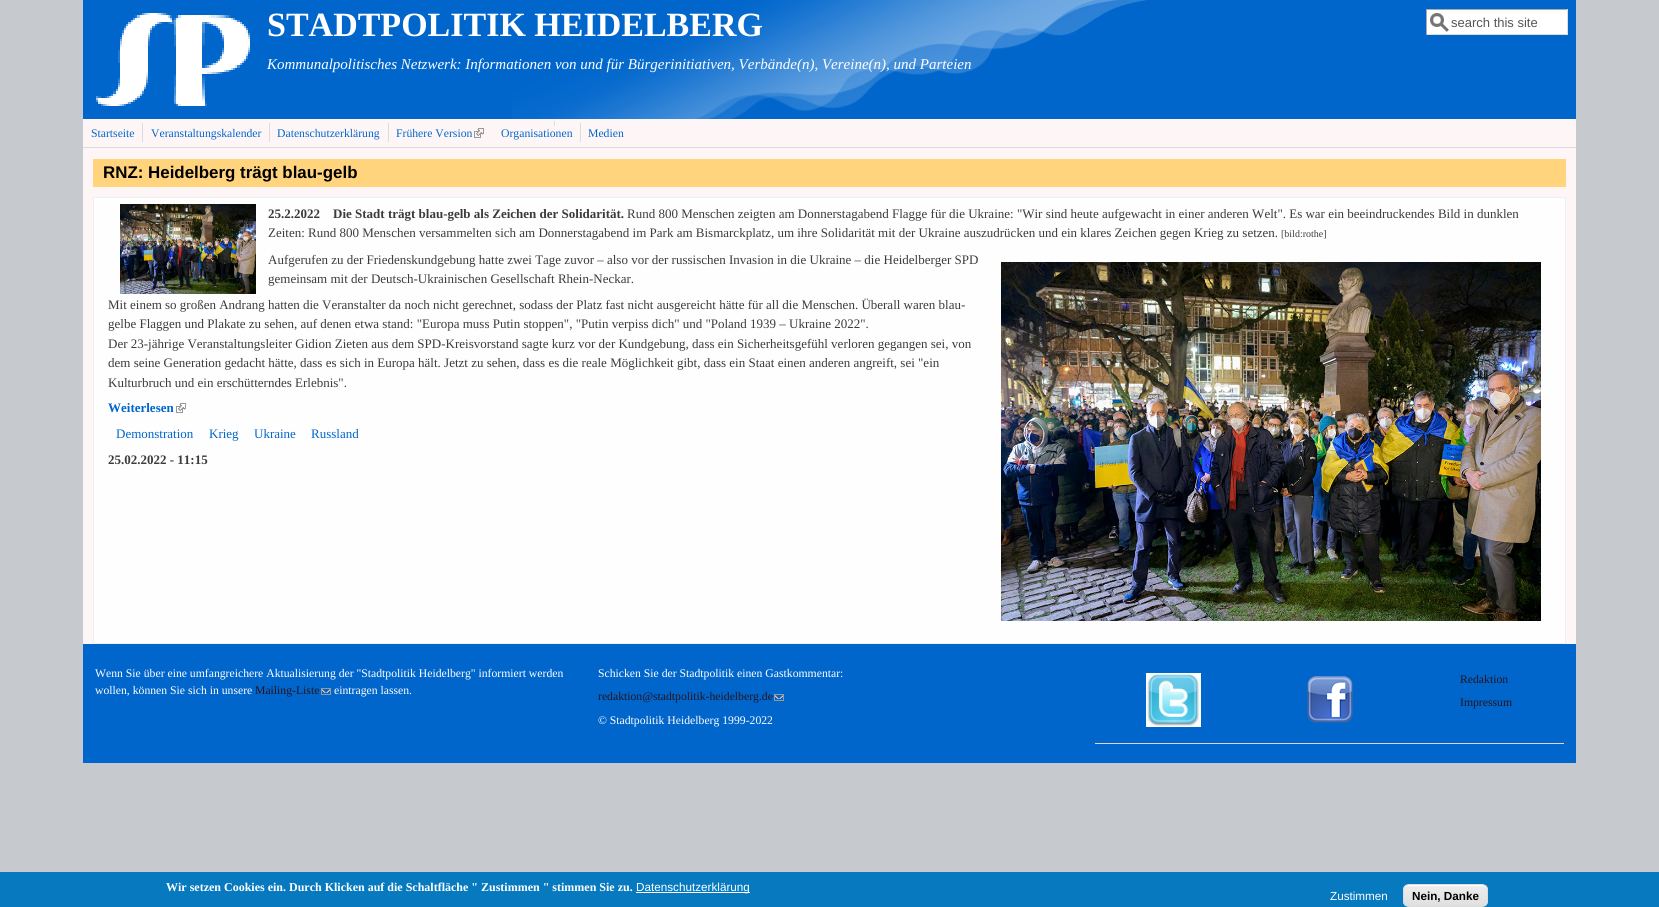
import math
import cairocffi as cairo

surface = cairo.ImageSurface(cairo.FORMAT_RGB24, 1659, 907)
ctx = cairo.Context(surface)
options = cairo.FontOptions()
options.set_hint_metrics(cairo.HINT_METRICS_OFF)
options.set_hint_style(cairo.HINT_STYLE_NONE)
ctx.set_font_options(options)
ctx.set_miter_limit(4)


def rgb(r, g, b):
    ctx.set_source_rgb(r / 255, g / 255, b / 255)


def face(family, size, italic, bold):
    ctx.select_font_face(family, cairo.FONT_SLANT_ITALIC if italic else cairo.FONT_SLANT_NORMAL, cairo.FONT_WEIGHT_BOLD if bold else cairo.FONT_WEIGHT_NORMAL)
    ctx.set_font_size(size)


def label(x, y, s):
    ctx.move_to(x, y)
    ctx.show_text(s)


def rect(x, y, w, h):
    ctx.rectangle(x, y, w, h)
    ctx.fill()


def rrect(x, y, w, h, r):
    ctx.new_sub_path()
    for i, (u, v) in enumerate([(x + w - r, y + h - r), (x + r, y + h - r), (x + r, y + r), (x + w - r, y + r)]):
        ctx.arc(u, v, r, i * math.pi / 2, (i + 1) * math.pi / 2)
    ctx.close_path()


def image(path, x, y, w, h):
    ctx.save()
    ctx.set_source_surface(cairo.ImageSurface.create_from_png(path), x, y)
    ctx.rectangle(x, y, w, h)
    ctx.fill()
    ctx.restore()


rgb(198, 202, 207)
ctx.paint()
rgb(254, 246, 246)
rect(83, 119, 1493, 525)
rgb(0, 102, 204)
rect(83, 0, 1493, 119)
image('image0.png', 512, 0, 635, 119)
image('image1.png', 96, 13, 154, 93)
face('Liberation Serif', 34, 0, 1)
rgb(255, 255, 255)
label(267, 36, 'STADTPOLITIK HEIDELBERG')
face('Liberation Serif', 15, 1, 0)
label(267, 69, 'Kommunalpolitisches Netzwerk: Informationen von und für Bürgerinitiativen, Verbände(n), Vereine(n), und Parteien')
rect(1427, 10, 140, 24)
image('image2.png', 1430, 13, 19, 19)
rgb(170, 170, 170)
rect(1426, 9, 142, 1)
rgb(221, 221, 221)
rect(1567, 9, 1, 26)
rect(1426, 34, 142, 1)
rgb(170, 170, 170)
rect(1426, 9, 1, 26)
face('Liberation Sans', 13, 0, 0)
rgb(85, 85, 85)
label(1451, 27, 'search this site')
rgb(220, 220, 220)
rect(83, 147, 1493, 1)
face('Liberation Serif', 11.7, 0, 0)
rgb(0, 102, 204)
label(91, 137, 'Startseite')
rgb(220, 220, 220)
rect(142, 123, 1, 19)
rgb(0, 102, 204)
label(151, 137, 'Veranstaltungskalender')
rgb(220, 220, 220)
rect(269, 123, 1, 19)
rgb(0, 102, 204)
label(277, 137, 'Datenschutzerklärung')
rgb(220, 220, 220)
rect(388, 123, 1, 19)
rgb(0, 102, 204)
label(396, 137, 'Frühere Version')
rgb(220, 220, 220)
rect(554, 121, 1, 5)
image('image3.png', 474, 128, 10, 10)
rgb(0, 102, 204)
label(501, 137, 'Organisationen')
rgb(220, 220, 220)
rect(580, 123, 1, 19)
rgb(0, 102, 204)
label(588, 137, 'Medien')
rgb(255, 212, 125)
rect(93, 159, 1473, 28)
face('Liberation Sans', 16.9, 0, 1)
rgb(0, 0, 0)
label(103, 178, 'RNZ: Heidelberg trägt blau-gelb')
rgb(254, 254, 254)
ctx.rectangle(93.5, 197.5, 1472, 446)
ctx.fill_preserve()
rgb(239, 239, 239)
ctx.set_line_width(1)
ctx.stroke()
image('image4.png', 120, 204, 136, 90)
face('Liberation Serif', 13, 0, 1)
rgb(59, 59, 59)
label(268, 218, '25.2.2022')
label(333, 218, 'Die Stadt trägt blau-gelb als Zeichen der Solidarität.')
face('Liberation Serif', 13, 0, 0)
label(627, 218, 'Rund 800 Menschen zeigten am Donnerstagabend Flagge für die Ukraine: "Wir sind heute aufgewacht in einer anderen Welt". Es war ein beeindruckendes Bild in dunklen')
label(268, 237, 'Zeiten: Rund 800 Menschen versammelten sich am Donnerstagabend im Park am Bismarckplatz, um ihre Solidarität mit der Ukraine auszudrücken und ein klares Zeichen gegen Krieg zu setzen.')
face('Liberation Serif', 10, 0, 0)
label(1281, 237, '[bild:rothe]')
face('Liberation Serif', 13, 0, 0)
label(268, 264, 'Aufgerufen zu der Friedenskundgebung hatte zwei Tage zuvor – also vor der russischen Invasion in die Ukraine – die Heidelberger SPD')
label(268, 283, 'gemeinsam mit der Deutsch-Ukrainischen Gesellschaft Rhein-Neckar.')
image('image5.png', 1001, 262, 540, 359)
label(108, 309, 'Mit einem so großen Andrang hatten die Veranstalter da noch nicht gerechnet, sodass der Platz fast nicht ausgereicht hätte für all die Menschen. Überall waren blau-')
label(108, 328, 'gelbe Flaggen und Plakate zu sehen, auf denen etwa stand: "Europa muss Putin stoppen", "Putin verpiss dich" und "Poland 1939 – Ukraine 2022".')
label(108, 348, 'Der 23-jährige Veranstaltungsleiter Gidion Zieten aus dem SPD-Kreisvorstand sagte kurz vor der Kundgebung, dass ein Sicherheitsgefühl verloren gegangen sei, von')
label(108, 367, 'dem seine Generation gedacht hätte, dass es sich in Europa hält. Jetzt zu sehen, dass es die reale Möglichkeit gibt, dass ein Staat einen anderen angreift, sei "ein')
label(108, 387, 'Kulturbruch und ein erschütterndes Erlebnis".')
face('Liberation Serif', 13, 0, 1)
rgb(0, 102, 204)
label(108, 412, 'Weiterlesen')
image('image6.png', 176, 403, 10, 10)
face('Liberation Serif', 13, 0, 0)
label(116, 438, 'Demonstration')
label(209, 438, 'Krieg')
label(254, 438, 'Ukraine')
label(311, 438, 'Russland')
face('Liberation Serif', 13, 0, 1)
rgb(59, 59, 59)
label(108, 464, '25.02.2022 - 11:15')
rgb(0, 102, 204)
rect(83, 644, 1493, 119)
face('Liberation Serif', 11.7, 0, 0)
rgb(255, 255, 255)
label(95, 677, 'Wenn Sie über eine umfangreichere Aktualisierung der "Stadtpolitik Heidelberg" informiert werden')
label(95, 694, 'wollen, können Sie sich in unsere')
rgb(35, 19, 30)
label(255, 694, 'Mailing-Liste')
image('image7.png', 321, 688, 10, 7)
rgb(255, 255, 255)
label(334, 694, 'eintragen lassen.')
label(598, 677, 'Schicken Sie der Stadtpolitik einen Gastkommentar:')
rgb(35, 19, 30)
label(598, 700, 'redaktion@stadtpolitik-heidelberg.de')
image('image7.png', 774, 694, 10, 7)
rgb(255, 255, 255)
label(598, 724, '© Stadtpolitik Heidelberg 1999-2022')
image('image8.png', 1146, 673, 55, 54)
image('image9.png', 1307, 676, 46, 47)
rgb(226, 214, 214)
rect(1095, 743, 469, 1)
rgb(35, 19, 30)
label(1460, 683, 'Redaktion')
label(1460, 706, 'Impressum')
rgb(7, 121, 191)
rect(0, 872, 1659, 35)
face('Liberation Serif', 12, 0, 1)
rgb(255, 255, 255)
label(166, 891, 'Wir setzen Cookies ein. Durch Klicken auf die Schaltfläche " Zustimmen " stimmen Sie zu.')
rect(636, 892, 114, 1)
face('Liberation Sans', 11.7, 0, 0)
label(636, 891, 'Datenschutzerklärung')
label(1330, 900, 'Zustimmen')
ctx.save()
rrect(1403, 884, 85, 23, 6)
ctx.clip()
gradient = cairo.LinearGradient(1446, 885, 1446, 906)
gradient.add_color_stop_rgba(0.05, 0.929, 0.929, 0.929, 1)
gradient.add_color_stop_rgba(1, 0.875, 0.875, 0.875, 1)
ctx.set_source(gradient)
rect(1403, 885, 85, 21)
ctx.restore()
ctx.new_path()
ctx.move_to(1409, 886)
ctx.line_to(1482, 886)
ctx.curve_to(1485, 886, 1487, 888, 1487, 891)
ctx.curve_to(1487, 882, 1476, 885, 1470, 885)
ctx.line_to(1421, 885)
ctx.curve_to(1415, 885, 1404, 882, 1404, 891)
ctx.curve_to(1404, 888, 1406, 886, 1409, 886)
ctx.close_path()
ctx.fill()
rrect(1403.5, 884.5, 84, 22, 5.5)
rgb(220, 220, 220)
ctx.stroke()
face('Liberation Sans', 11.7, 0, 1)
rgb(0, 0, 0)
label(1412, 900, 'Nein, Danke')
surface.write_to_png('render.png')
